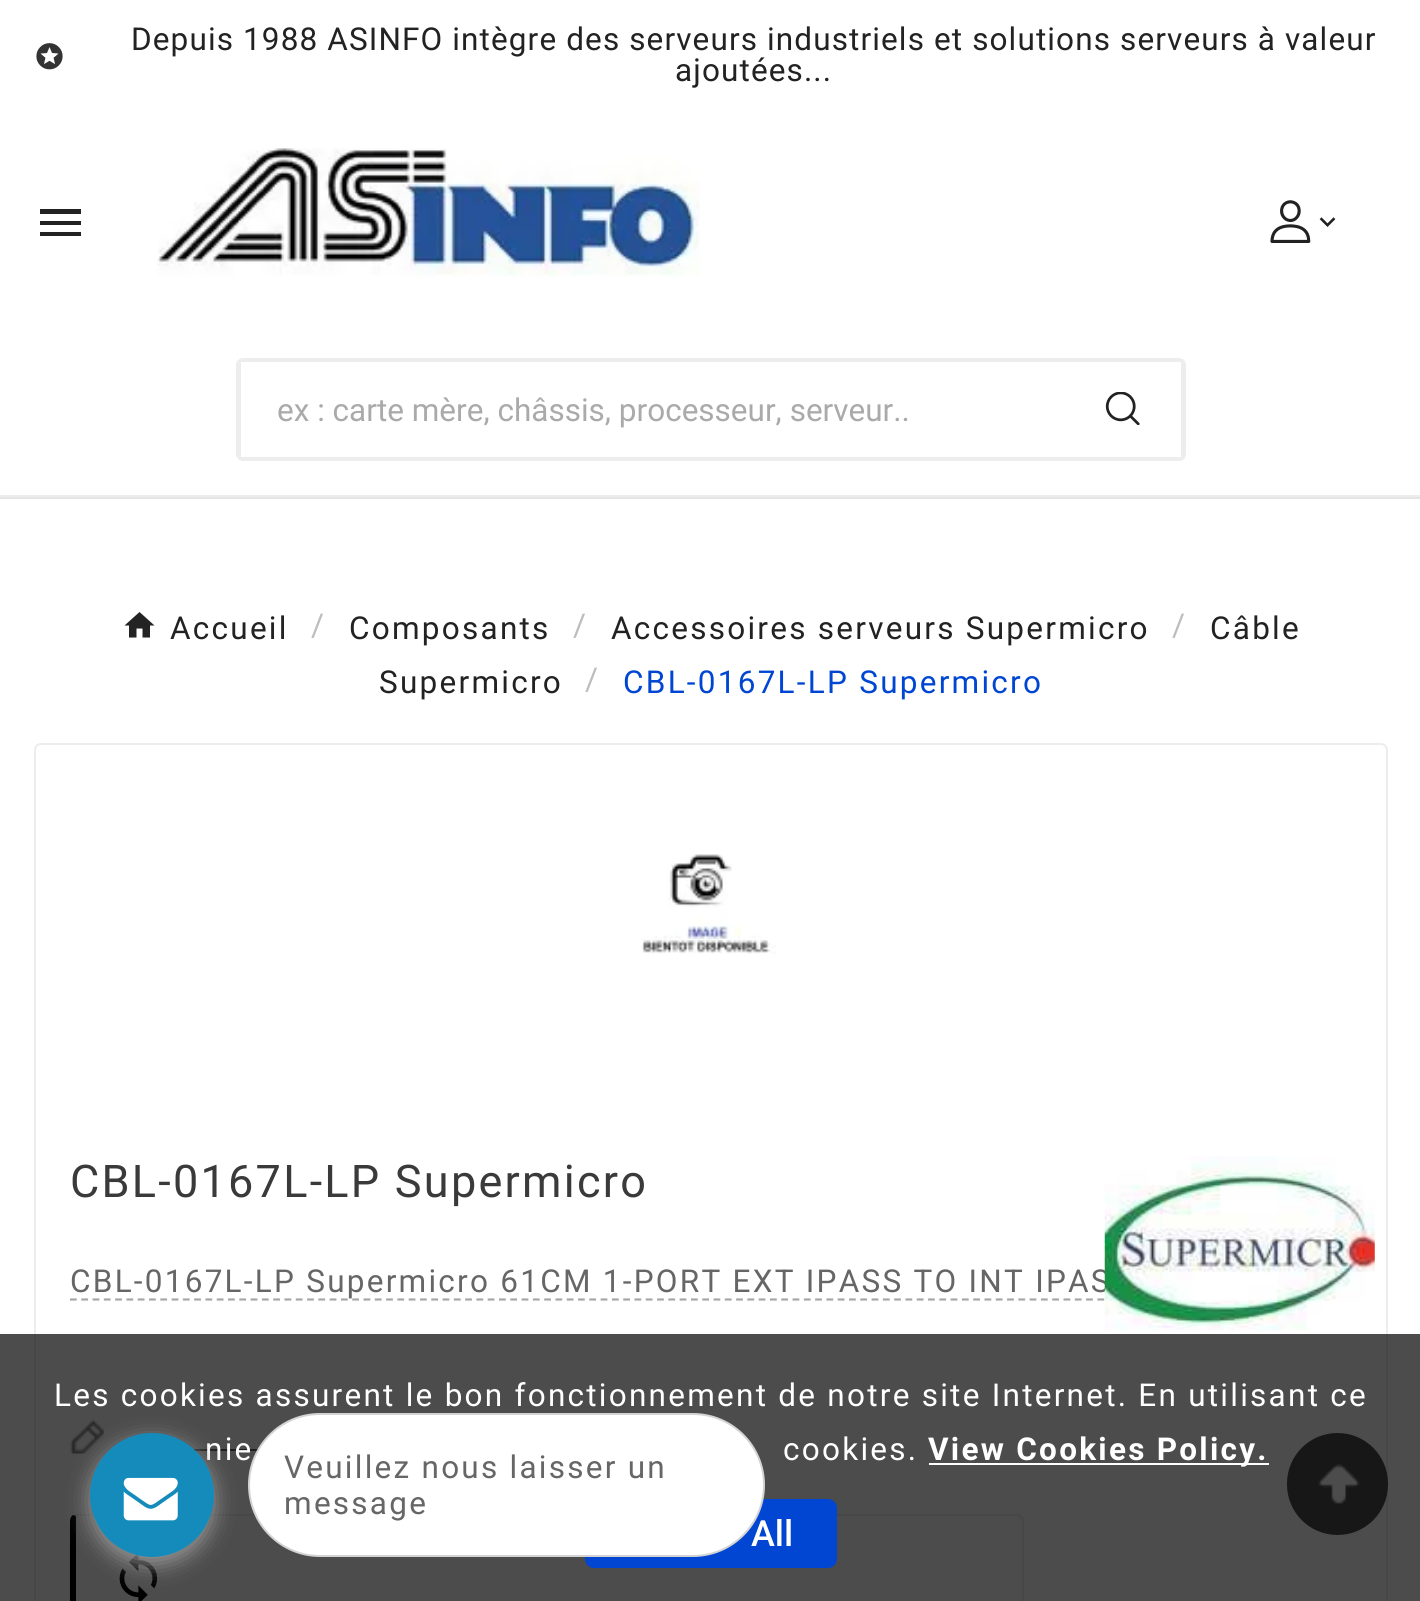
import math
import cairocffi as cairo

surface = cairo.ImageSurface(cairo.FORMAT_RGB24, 1420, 1601)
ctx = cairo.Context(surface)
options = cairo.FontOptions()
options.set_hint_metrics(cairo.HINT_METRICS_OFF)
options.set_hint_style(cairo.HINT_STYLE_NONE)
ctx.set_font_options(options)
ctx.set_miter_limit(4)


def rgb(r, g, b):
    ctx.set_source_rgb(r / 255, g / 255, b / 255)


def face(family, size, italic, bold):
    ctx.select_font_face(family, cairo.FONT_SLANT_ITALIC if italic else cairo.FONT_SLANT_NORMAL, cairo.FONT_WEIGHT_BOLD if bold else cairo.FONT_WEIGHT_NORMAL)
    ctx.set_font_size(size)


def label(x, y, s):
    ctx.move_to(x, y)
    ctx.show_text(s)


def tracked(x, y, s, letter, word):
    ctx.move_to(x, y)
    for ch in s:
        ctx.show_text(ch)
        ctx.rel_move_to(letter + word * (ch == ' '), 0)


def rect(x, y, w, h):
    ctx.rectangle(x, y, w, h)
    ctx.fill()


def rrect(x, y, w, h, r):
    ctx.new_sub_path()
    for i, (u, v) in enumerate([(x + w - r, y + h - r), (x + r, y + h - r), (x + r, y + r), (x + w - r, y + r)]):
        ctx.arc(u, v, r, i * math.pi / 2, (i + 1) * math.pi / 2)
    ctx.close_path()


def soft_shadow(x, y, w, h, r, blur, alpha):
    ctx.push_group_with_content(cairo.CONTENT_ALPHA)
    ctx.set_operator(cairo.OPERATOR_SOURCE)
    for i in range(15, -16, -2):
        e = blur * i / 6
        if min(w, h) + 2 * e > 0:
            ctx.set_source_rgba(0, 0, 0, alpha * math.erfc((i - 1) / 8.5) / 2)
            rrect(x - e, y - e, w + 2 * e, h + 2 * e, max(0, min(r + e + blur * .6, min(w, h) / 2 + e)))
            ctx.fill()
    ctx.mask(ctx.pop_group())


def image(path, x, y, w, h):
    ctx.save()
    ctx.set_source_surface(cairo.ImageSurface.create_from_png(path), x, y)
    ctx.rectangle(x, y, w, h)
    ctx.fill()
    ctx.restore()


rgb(255, 255, 255)
ctx.paint()
rgb(229, 229, 229)
rect(0, 497, 1420, 2)
rgb(237, 237, 237)
rect(0, 495, 1420, 2)
image('image0.png', 36, 43, 27, 27)
face('Roboto', 31.5, 0, 0)
rgb(34, 34, 34)
tracked(131, 50, 'Depuis 1988 ASINFO intègre des serveurs industriels et solutions serveurs à valeur', 1.12, 0)
tracked(675, 81, 'ajoutées...', 1.12, 0)
ctx.new_path()
ctx.move_to(40, 209)
ctx.line_to(81, 209)
ctx.line_to(81, 214)
ctx.line_to(40, 214)
ctx.close_path()
ctx.move_to(40, 225)
ctx.line_to(40, 221)
ctx.line_to(81, 221)
ctx.line_to(81, 225)
ctx.close_path()
ctx.move_to(40, 236)
ctx.line_to(40, 232)
ctx.line_to(81, 232)
ctx.line_to(81, 236)
ctx.close_path()
ctx.fill()
image('image1.png', 157, 148, 543, 129)
image('image2.png', 1270, 200, 41, 43)
image('image3.png', 1319, 217, 17, 10)
rrect(238.5, 360.5, 945, 98, 4.5)
rgb(237, 237, 237)
ctx.set_line_width(5)
ctx.stroke()
rgb(255, 255, 255)
rect(241, 362, 940, 95)
rgb(170, 170, 170)
label(277, 421, 'ex : carte mère, châssis, processeur, serveur..')
image('image4.png', 1105, 392, 35, 33)
rgb(34, 34, 34)
tracked(170, 639, 'Accueil', 2.25, 0)
rgb(35, 35, 35)
ctx.new_path()
ctx.move_to(136.5, 637.5)
ctx.line_to(129, 637.5)
ctx.line_to(129, 625.5)
ctx.line_to(124.5, 625.5)
ctx.line_to(139.5, 612)
ctx.line_to(154.5, 625.5)
ctx.line_to(150, 625.5)
ctx.line_to(150, 637.5)
ctx.line_to(142.5, 637.5)
ctx.line_to(142.5, 628.5)
ctx.line_to(136.5, 628.5)
ctx.close_path()
ctx.fill()
rgb(189, 189, 189)
tracked(311, 636, '/', 2.25, 0)
rgb(34, 34, 34)
tracked(349, 639, 'Composants', 2.25, 0)
rgb(189, 189, 189)
tracked(573, 636, '/', 2.25, 0)
rgb(34, 34, 34)
tracked(611, 639, 'Accessoires serveurs Supermicro', 2.25, 0)
rgb(189, 189, 189)
tracked(1172, 636, '/', 2.25, 0)
rgb(34, 34, 34)
tracked(1210, 639, 'Câble', 2.25, 0)
tracked(379, 693, 'Supermicro', 2.25, 0)
rgb(189, 189, 189)
tracked(585, 690, '/', 2.25, 0)
rgb(0, 70, 210)
tracked(623, 693, 'CBL-0167L-LP Supermicro', 2.25, 0)
rrect(35, 744, 1352, 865, 6)
rgb(237, 237, 237)
ctx.set_line_width(2)
ctx.stroke()
image('image5.png', 641, 854, 135, 100)
face('Roboto', 45, 0, 0)
rgb(58, 58, 58)
tracked(70, 1197, 'CBL-0167L-LP Supermicro', 2.25, 0)
ctx.new_path()
ctx.move_to(70, 1299.5)
ctx.line_to(1352, 1299.5)
rgb(167, 167, 167)
ctx.set_line_width(2.2)
ctx.set_dash([6.75, 4.54])
ctx.stroke()
face('Roboto', 31.5, 0, 0)
rgb(102, 102, 102)
tracked(70, 1292, 'CBL-0167L-LP Supermicro 61CM 1-PORT EXT IPASS TO INT IPAS', 2.25, 0)
image('image6.png', 1104, 1156, 271, 174)
image('image7.png', 69, 1419, 35, 35)
rect(193, 1449, 65, 2)
rgb(237, 237, 237)
ctx.new_path()
ctx.move_to(76, 1516)
ctx.line_to(73, 1515)
ctx.line_to(74, 1514)
ctx.line_to(1019, 1514)
ctx.line_to(1022, 1516)
ctx.line_to(1020, 1518)
ctx.line_to(1017, 1516)
ctx.close_path()
ctx.fill()
ctx.set_source_rgba(0, 0, 0, 0.07)
ctx.new_path()
ctx.move_to(1024, 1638)
ctx.line_to(1022, 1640)
ctx.line_to(1020, 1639)
ctx.curve_to(1026, 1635, 1022, 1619, 1022, 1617)
ctx.line_to(1022, 1521)
ctx.line_to(1020, 1518)
ctx.line_to(1022, 1516)
ctx.line_to(1024, 1519)
ctx.close_path()
ctx.fill()
rgb(0, 0, 0)
ctx.new_path()
ctx.move_to(73, 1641)
ctx.curve_to(71, 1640, 70, 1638, 70, 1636)
ctx.line_to(70, 1521)
ctx.curve_to(70, 1519, 71, 1516, 73, 1515)
ctx.line_to(76, 1516)
ctx.line_to(76, 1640)
ctx.line_to(77, 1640)
ctx.close_path()
ctx.fill()
image('image8.png', 119, 1554, 39, 47)
rgb(76, 76, 76)
rrect(1287, 1433, 101, 102, 50.5)
ctx.fill()
image('image9.png', 1318, 1464, 42, 40)
ctx.set_source_rgba(0, 0, 0, 0.7)
rect(0, 1334, 1420, 267)
rgb(255, 255, 255)
tracked(54, 1406, 'Les cookies assurent le bon fonctionnement de notre site Internet. En utilisant ce', 2.25, 0)
tracked(205, 1460, 'nie', 2.25, 0)
tracked(783, 1460, 'cookies.', 2.25, 0)
rect(929, 1463, 340, 2)
face('Roboto', 31.5, 0, 1)
tracked(928, 1460, 'View Cookies Policy.', 2.25, 0)
rgb(0, 70, 210)
rrect(585, 1499, 252, 69, 9)
ctx.fill()
face('Roboto Medium', 36, 0, 0)
rgb(255, 255, 255)
label(751, 1546, 'All')
rgb(153, 153, 153)
soft_shadow(90, 1440, 124, 124, 62, 11, 1)
rgb(21, 139, 187)
ctx.arc(152, 1495, 62, 0, 2 * math.pi)
ctx.fill()
image('image10.png', 123, 1477, 55, 44)
rgb(255, 255, 255)
rrect(249, 1414, 515, 142, 71)
ctx.fill_preserve()
rgb(211, 211, 211)
ctx.set_line_width(2)
ctx.set_dash([])
ctx.stroke()
face('Roboto', 31.5, 0, 0)
rgb(102, 102, 102)
tracked(284, 1478, 'Veuillez nous laisser un', 2.25, 0)
tracked(284, 1514, 'message', 2.25, 0)
surface.write_to_png('render.png')
